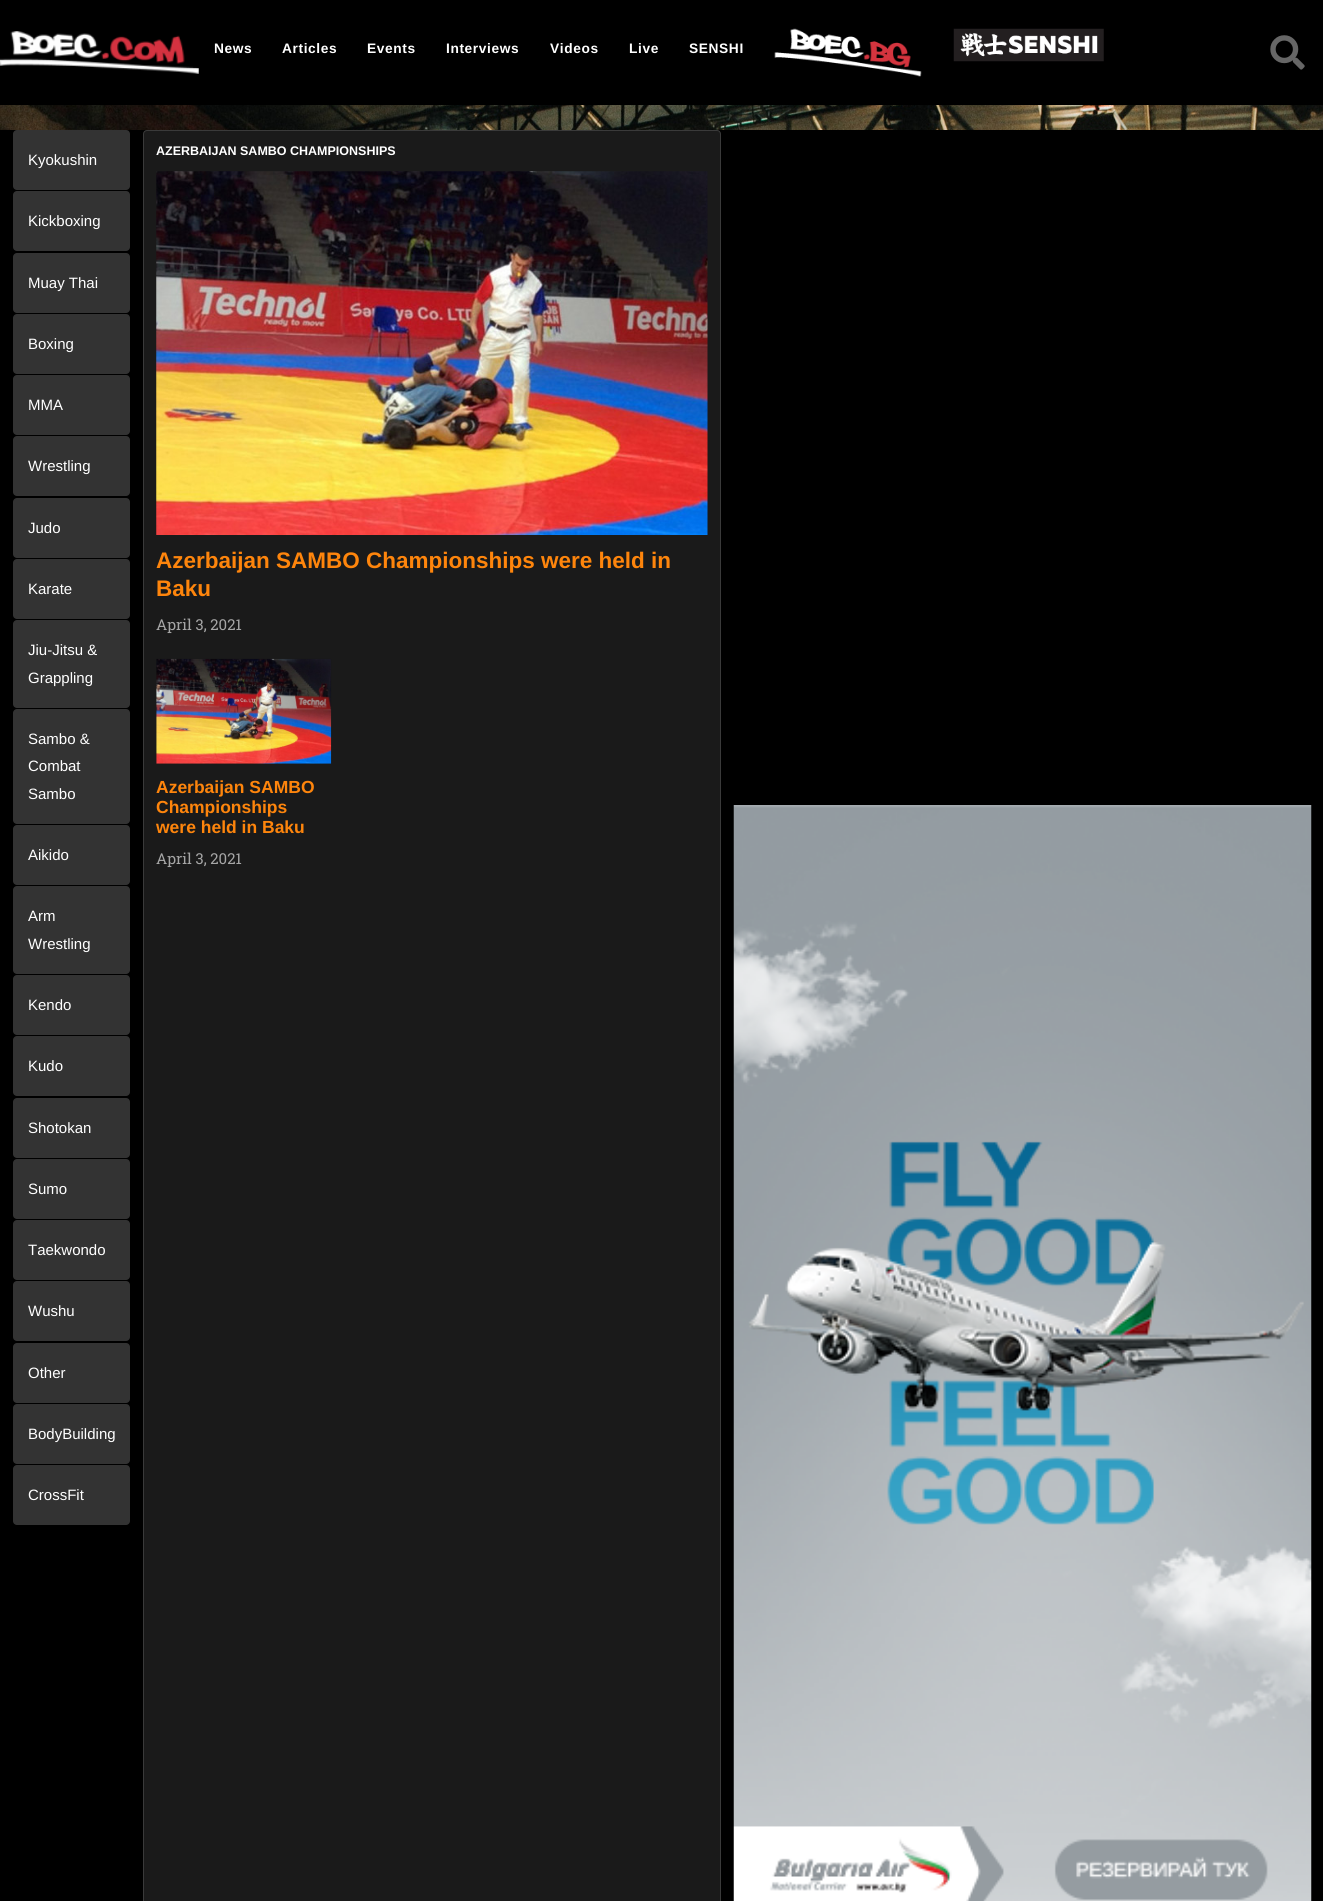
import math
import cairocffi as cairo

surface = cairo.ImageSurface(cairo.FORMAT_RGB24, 1323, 1901)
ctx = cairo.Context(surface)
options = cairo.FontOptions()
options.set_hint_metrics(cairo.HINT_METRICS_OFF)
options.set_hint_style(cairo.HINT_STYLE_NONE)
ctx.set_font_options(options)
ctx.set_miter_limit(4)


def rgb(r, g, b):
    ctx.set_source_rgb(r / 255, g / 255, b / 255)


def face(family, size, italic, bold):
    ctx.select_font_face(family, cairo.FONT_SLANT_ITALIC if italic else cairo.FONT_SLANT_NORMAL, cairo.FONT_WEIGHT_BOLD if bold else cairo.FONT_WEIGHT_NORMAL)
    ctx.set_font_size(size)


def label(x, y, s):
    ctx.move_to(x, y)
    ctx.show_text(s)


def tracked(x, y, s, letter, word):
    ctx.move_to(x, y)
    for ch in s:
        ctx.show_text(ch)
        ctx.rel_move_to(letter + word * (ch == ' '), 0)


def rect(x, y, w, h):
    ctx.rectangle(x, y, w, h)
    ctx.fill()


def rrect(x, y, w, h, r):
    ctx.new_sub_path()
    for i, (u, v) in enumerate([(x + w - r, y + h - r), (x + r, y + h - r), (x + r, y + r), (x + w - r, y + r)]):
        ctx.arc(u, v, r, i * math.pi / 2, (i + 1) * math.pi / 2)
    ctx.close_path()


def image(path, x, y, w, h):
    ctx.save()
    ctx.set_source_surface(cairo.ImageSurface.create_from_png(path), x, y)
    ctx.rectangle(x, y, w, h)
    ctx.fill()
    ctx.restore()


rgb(255, 255, 255)
ctx.paint()
image('image0.png', 0, 105, 1323, 25)
rgb(0, 0, 0)
rect(0, 0, 1323, 105)
image('image1.png', 0, 31, 199, 43)
face('Liberation Sans', 13.75, 0, 1)
rgb(255, 255, 255)
tracked(214, 53, 'News', 0.6, 0)
tracked(282, 53, 'Articles', 0.6, 0)
tracked(367, 53, 'Events', 0.6, 0)
tracked(446, 53, 'Interviews', 0.6, 0)
tracked(550, 53, 'Videos', 0.6, 0)
tracked(629, 53, 'Live', 0.6, 0)
tracked(689, 53, 'SENSHI', 0.6, 0)
image('image2.png', 774, 28, 148, 49)
image('image3.png', 953, 28, 151, 34)
image('image4.png', 1270, 35, 35, 35)
rgb(0, 0, 0)
rect(0, 130, 1323, 1771)
rgb(51, 51, 51)
rrect(13, 130, 117, 60, 4)
ctx.fill()
face('Liberation Sans', 15, 0, 0)
rgb(255, 255, 255)
label(28, 165, 'Kyokushin')
rgb(51, 51, 51)
rrect(13, 191, 117, 60, 4)
ctx.fill()
rgb(255, 255, 255)
label(28, 226, 'Kickboxing')
rgb(51, 51, 51)
rrect(13, 253, 117, 60, 4)
ctx.fill()
rgb(255, 255, 255)
label(28, 288, 'Muay Thai')
rgb(51, 51, 51)
rrect(13, 314, 117, 60, 4)
ctx.fill()
rgb(255, 255, 255)
label(28, 349, 'Boxing')
rgb(51, 51, 51)
rrect(13, 375, 117, 60, 4)
ctx.fill()
rgb(255, 255, 255)
label(28, 410, 'MMA')
rgb(51, 51, 51)
rrect(13, 436, 117, 60, 4)
ctx.fill()
rgb(255, 255, 255)
label(28, 471, 'Wrestling')
rgb(51, 51, 51)
rrect(13, 498, 117, 60, 4)
ctx.fill()
rgb(255, 255, 255)
label(28, 533, 'Judo')
rgb(51, 51, 51)
rrect(13, 559, 117, 60, 4)
ctx.fill()
rgb(255, 255, 255)
label(28, 594, 'Karate')
rgb(51, 51, 51)
rrect(13, 620, 117, 88, 4)
ctx.fill()
rgb(255, 255, 255)
label(28, 655, 'Jiu-Jitsu &')
label(28, 683, 'Grappling')
rgb(51, 51, 51)
rrect(13, 709, 117, 115, 4)
ctx.fill()
rgb(255, 255, 255)
label(28, 744, 'Sambo &')
label(28, 771, 'Combat')
label(28, 799, 'Sambo')
rgb(51, 51, 51)
rrect(13, 825, 117, 60, 4)
ctx.fill()
rgb(255, 255, 255)
label(28, 860, 'Aikido')
rgb(51, 51, 51)
rrect(13, 886, 117, 88, 4)
ctx.fill()
rgb(255, 255, 255)
label(28, 921, 'Arm')
label(28, 949, 'Wrestling')
rgb(51, 51, 51)
rrect(13, 975, 117, 60, 4)
ctx.fill()
rgb(255, 255, 255)
label(28, 1010, 'Kendo')
rgb(51, 51, 51)
rrect(13, 1036, 117, 60, 4)
ctx.fill()
rgb(255, 255, 255)
label(28, 1071, 'Kudo')
rgb(51, 51, 51)
rrect(13, 1098, 117, 60, 4)
ctx.fill()
rgb(255, 255, 255)
label(28, 1133, 'Shotokan')
rgb(51, 51, 51)
rrect(13, 1159, 117, 60, 4)
ctx.fill()
rgb(255, 255, 255)
label(28, 1194, 'Sumo')
rgb(51, 51, 51)
rrect(13, 1220, 117, 60, 4)
ctx.fill()
rgb(255, 255, 255)
label(28, 1255, 'Taekwondo')
rgb(51, 51, 51)
rrect(13, 1281, 117, 60, 4)
ctx.fill()
rgb(255, 255, 255)
label(28, 1316, 'Wushu')
rgb(51, 51, 51)
rrect(13, 1343, 117, 60, 4)
ctx.fill()
rgb(255, 255, 255)
label(28, 1378, 'Other')
rgb(51, 51, 51)
rrect(13, 1404, 117, 60, 4)
ctx.fill()
rgb(255, 255, 255)
label(28, 1439, 'BodyBuilding')
rgb(51, 51, 51)
rrect(13, 1465, 117, 60, 4)
ctx.fill()
rgb(255, 255, 255)
label(28, 1500, 'CrossFit')
rgb(26, 26, 26)
rrect(143.5, 130.5, 577, 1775, 3.5)
ctx.fill_preserve()
rgb(58, 58, 58)
ctx.set_line_width(1)
ctx.stroke()
face('Liberation Sans', 12.5, 0, 1)
rgb(255, 255, 255)
label(156, 155, 'AZERBAIJAN SAMBO CHAMPIONSHIPS')
image('image5.png', 156, 171, 552, 364)
face('Liberation Sans', 22.5, 0, 1)
rgb(254, 133, 12)
label(156, 568, 'Azerbaijan SAMBO Championships were held in')
label(156, 596, 'Baku')
face('Roboto Slab', 15, 0, 0)
rgb(166, 166, 166)
label(156, 630, 'April 3, 2021')
image('image6.png', 156, 658, 176, 106)
face('Liberation Sans', 17.5, 0, 1)
rgb(254, 133, 12)
label(156, 793, 'Azerbaijan SAMBO')
label(156, 813, 'Championships')
label(156, 833, 'were held in Baku')
face('Roboto Slab', 15, 0, 0)
rgb(166, 166, 166)
label(156, 864, 'April 3, 2021')
image('image7.png', 733, 805, 579, 1096)
surface.write_to_png('render.png')
